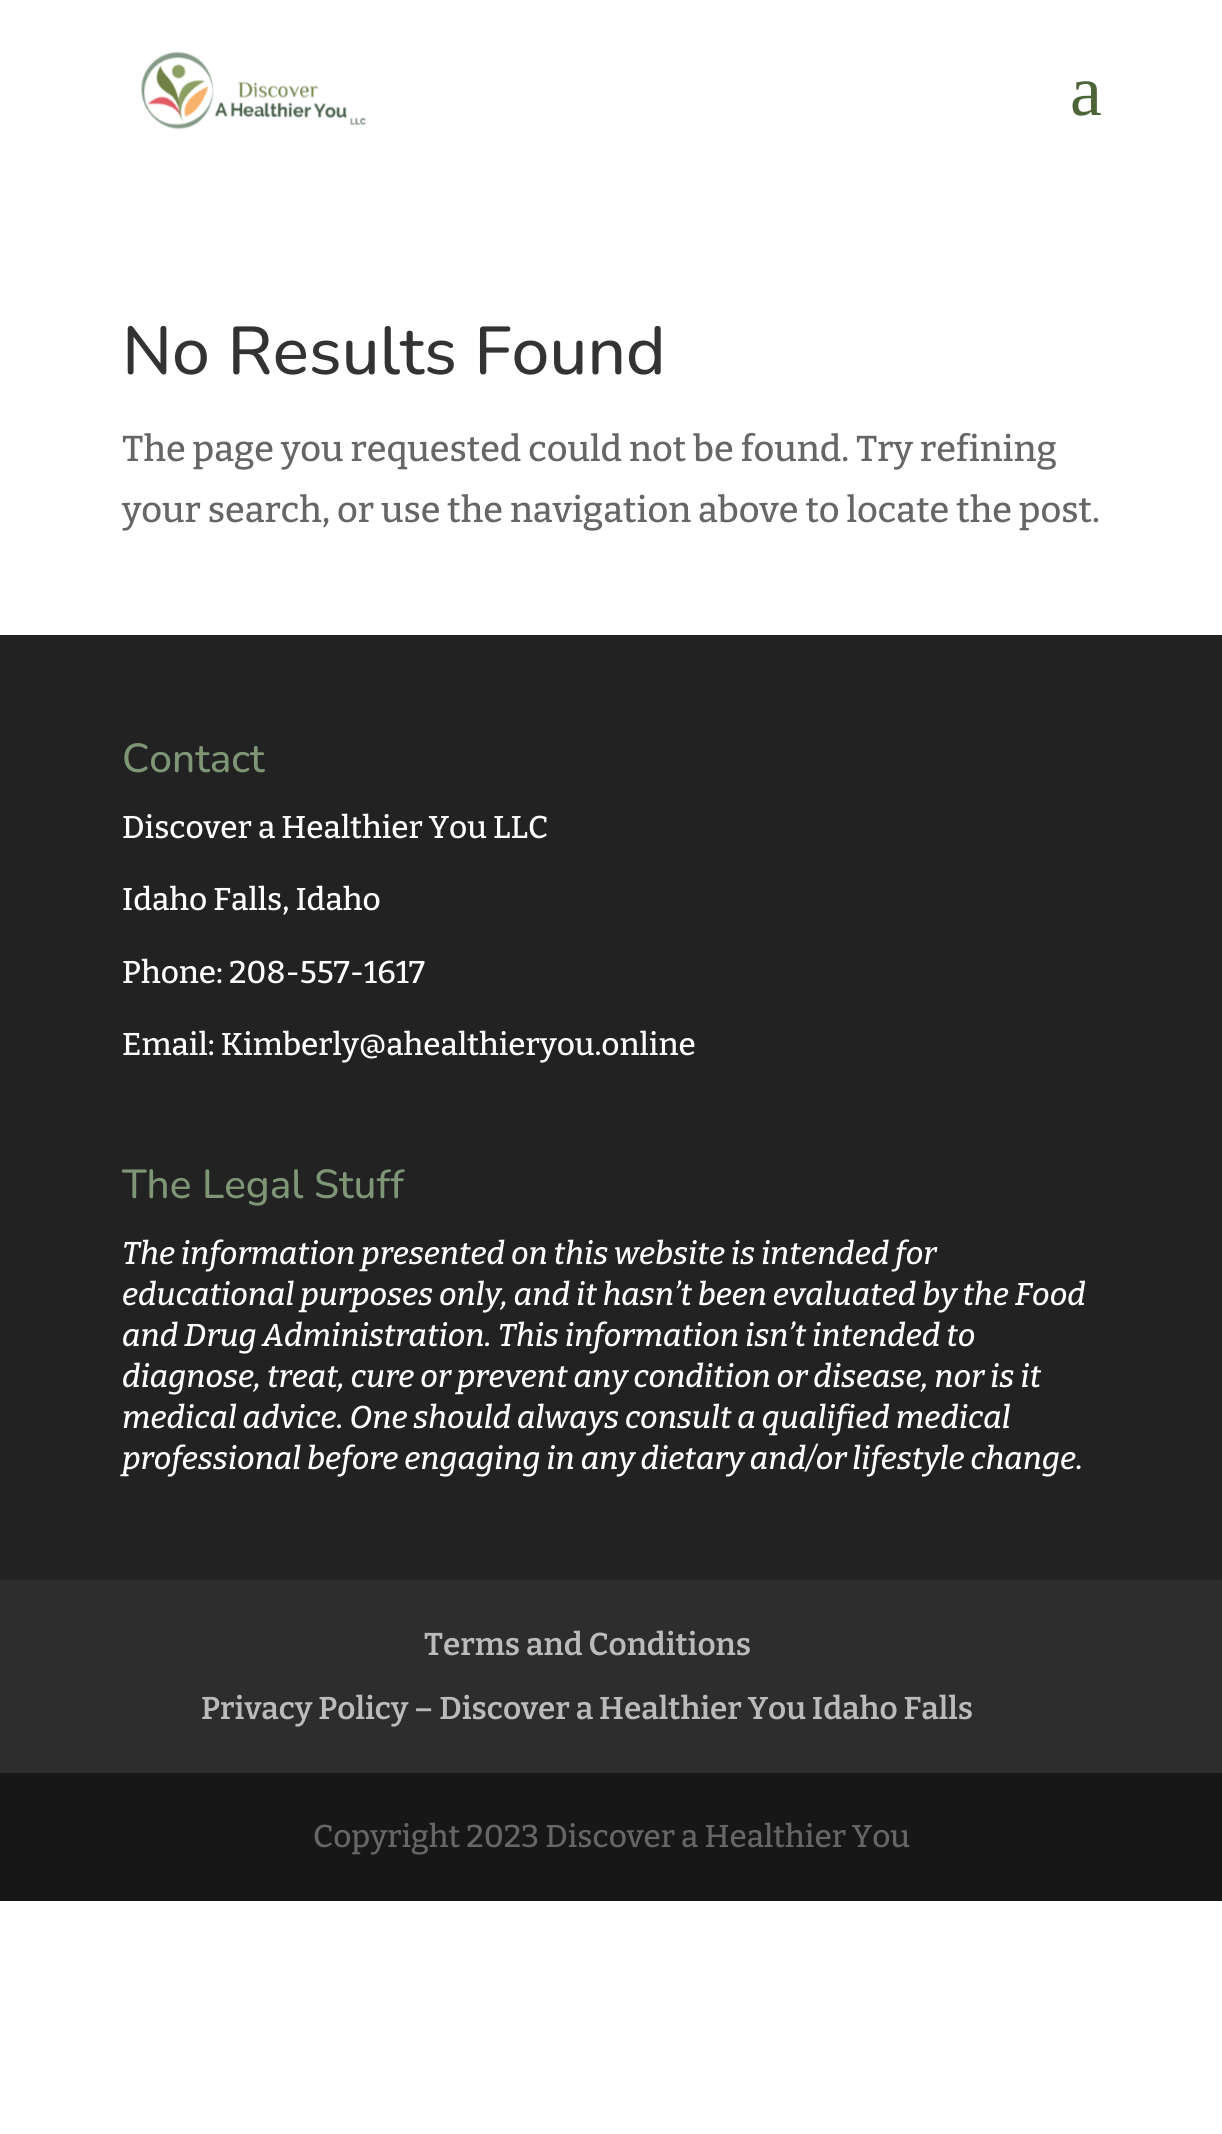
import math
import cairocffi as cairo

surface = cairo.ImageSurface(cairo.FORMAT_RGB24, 1222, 2134)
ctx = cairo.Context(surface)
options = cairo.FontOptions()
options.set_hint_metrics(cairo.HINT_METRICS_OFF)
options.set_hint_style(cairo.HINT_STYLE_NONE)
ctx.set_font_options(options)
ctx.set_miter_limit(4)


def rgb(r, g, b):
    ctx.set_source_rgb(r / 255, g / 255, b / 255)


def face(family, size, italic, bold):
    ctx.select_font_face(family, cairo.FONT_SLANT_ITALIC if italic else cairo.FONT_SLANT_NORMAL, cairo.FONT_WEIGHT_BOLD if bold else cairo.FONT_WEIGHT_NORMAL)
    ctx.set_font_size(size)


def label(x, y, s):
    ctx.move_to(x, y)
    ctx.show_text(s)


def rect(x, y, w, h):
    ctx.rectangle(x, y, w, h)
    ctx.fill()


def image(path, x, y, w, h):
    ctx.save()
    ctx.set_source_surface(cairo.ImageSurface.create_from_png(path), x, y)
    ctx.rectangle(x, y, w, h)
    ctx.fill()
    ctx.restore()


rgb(255, 255, 255)
ctx.paint()
image('image0.png', 141, 51, 225, 79)
face('Liberation Serif', 72, 0, 0)
rgb(77, 101, 54)
label(1070, 115, 'a')
face('Nunito Medium', 67.5, 0, 0)
rgb(51, 51, 51)
label(122, 374, 'No Results Found')
face('Bitter Medium', 36, 0, 0)
rgb(102, 102, 102)
label(122, 461, 'The page you requested could not be found. Try refining')
label(122, 522, 'your search, or use the navigation above to locate the post.')
rgb(34, 34, 34)
rect(0, 635, 1222, 945)
face('Nunito Medium', 40.5, 0, 0)
rgb(127, 150, 118)
label(122, 772, 'Contact')
face('Bitter Medium', 31.5, 0, 0)
rgb(255, 255, 255)
label(122, 838, 'Discover a Healthier You LLC')
label(122, 910, 'Idaho Falls, Idaho')
label(122, 983, 'Phone: 208-557-1617')
label(122, 1055, 'Email: Kimberly@ahealthieryou.online')
face('Nunito Medium', 40.5, 0, 0)
rgb(127, 150, 118)
label(122, 1198, 'The Legal Stuff')
face('Bitter Medium', 31.5, 1, 0)
rgb(255, 255, 255)
label(122, 1264, 'The information presented on this website is intended for')
label(122, 1305, 'educational purposes only, and it hasn’t been evaluated by the Food')
label(122, 1346, 'and Drug Administration. This information isn’t intended to')
label(122, 1387, 'diagnose, treat, cure or prevent any condition or disease, nor is it')
label(122, 1428, 'medical advice. One should always consult a qualified medical')
label(122, 1469, 'professional before engaging in any dietary and/or lifestyle change.')
rgb(45, 45, 45)
rect(0, 1580, 1222, 193)
face('Bitter SemiBold', 31.5, 0, 0)
rgb(187, 187, 187)
label(424, 1655, 'Terms and Conditions')
label(201, 1719, 'Privacy Policy – Discover a Healthier You Idaho Falls')
rgb(23, 23, 23)
rect(0, 1773, 1222, 128)
face('Bitter Medium', 31.5, 0, 0)
rgb(102, 102, 102)
label(313, 1847, 'Copyright 2023 Discover a Healthier You')
surface.write_to_png('render.png')
